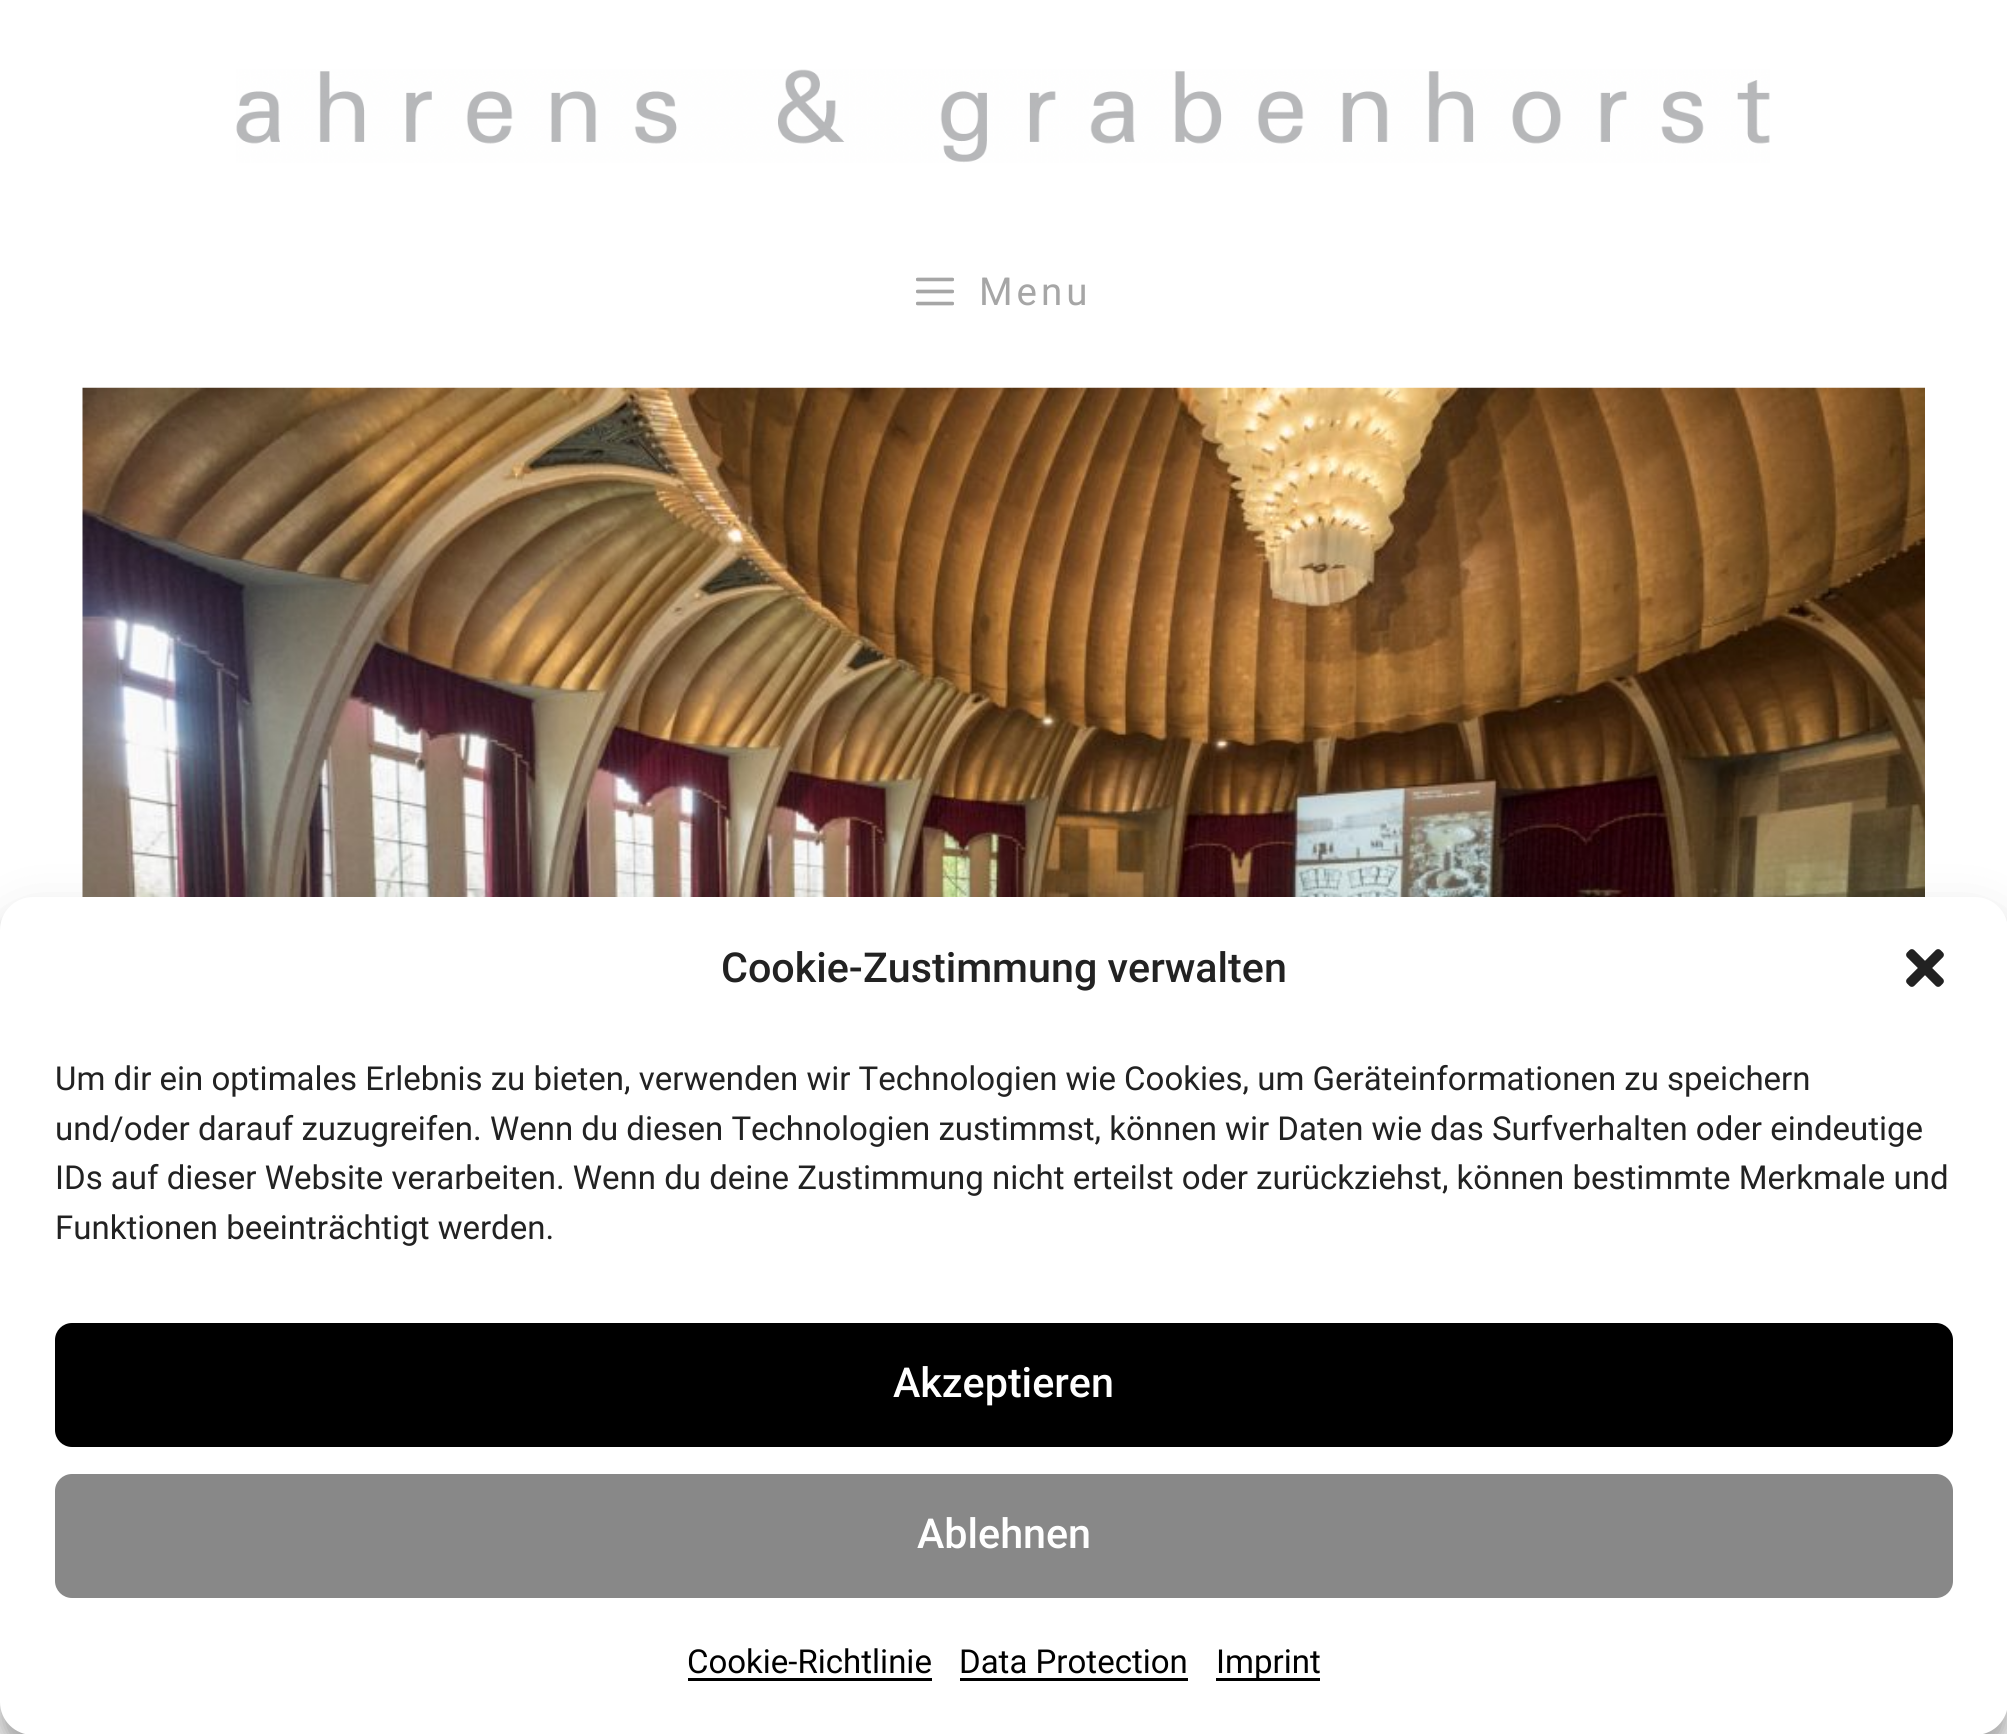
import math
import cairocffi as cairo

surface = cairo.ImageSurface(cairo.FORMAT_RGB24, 2007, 1734)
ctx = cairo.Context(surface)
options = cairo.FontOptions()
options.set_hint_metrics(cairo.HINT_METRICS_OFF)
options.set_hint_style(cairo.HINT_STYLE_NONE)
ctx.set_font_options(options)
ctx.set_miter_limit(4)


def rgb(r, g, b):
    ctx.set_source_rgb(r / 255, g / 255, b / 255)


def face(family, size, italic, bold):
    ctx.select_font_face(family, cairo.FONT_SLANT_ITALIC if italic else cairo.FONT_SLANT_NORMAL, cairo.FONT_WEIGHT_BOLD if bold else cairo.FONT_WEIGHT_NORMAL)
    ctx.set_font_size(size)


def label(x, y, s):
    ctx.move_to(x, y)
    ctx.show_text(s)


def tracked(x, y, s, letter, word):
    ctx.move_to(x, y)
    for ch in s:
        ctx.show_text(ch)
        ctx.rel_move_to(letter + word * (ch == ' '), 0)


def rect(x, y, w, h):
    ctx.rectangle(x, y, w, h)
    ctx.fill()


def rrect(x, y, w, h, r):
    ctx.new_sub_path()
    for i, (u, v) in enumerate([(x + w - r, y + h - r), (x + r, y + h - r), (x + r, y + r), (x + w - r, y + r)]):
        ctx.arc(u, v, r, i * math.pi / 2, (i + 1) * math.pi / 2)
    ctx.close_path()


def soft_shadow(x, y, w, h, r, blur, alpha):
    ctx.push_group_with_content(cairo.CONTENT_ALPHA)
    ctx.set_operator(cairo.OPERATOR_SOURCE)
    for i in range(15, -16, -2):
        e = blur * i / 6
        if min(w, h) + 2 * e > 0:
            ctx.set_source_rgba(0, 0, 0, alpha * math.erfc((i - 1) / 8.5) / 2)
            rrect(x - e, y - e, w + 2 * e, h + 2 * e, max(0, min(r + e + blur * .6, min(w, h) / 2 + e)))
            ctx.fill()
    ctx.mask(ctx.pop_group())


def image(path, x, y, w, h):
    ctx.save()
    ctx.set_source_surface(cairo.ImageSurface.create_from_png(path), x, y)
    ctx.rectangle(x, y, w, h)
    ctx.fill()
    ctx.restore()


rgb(255, 255, 255)
ctx.paint()
image('image0.png', 236, 69, 1534, 94)
image('image1.png', 916, 277, 38, 29)
face('Roboto', 38.5, 0, 0)
rgb(166, 166, 166)
tracked(979, 305, 'Menu', 4, 0)
image('image2.png', 82, 387, 1843, 510)
rgb(0, 0, 0)
soft_shadow(0, 913, 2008, 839, 33, 8, 0.23)
soft_shadow(0, 924, 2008, 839, 33, 27.5, 0.19)
rgb(255, 255, 255)
rrect(0, 897, 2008, 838, 33)
ctx.fill()
face('Roboto Medium', 41.25, 0, 0)
rgb(34, 34, 34)
label(721, 982, 'Cookie-Zustimmung verwalten')
image('image3.png', 1906, 949, 38, 38)
face('Roboto', 33, 0, 0)
label(55, 1090, 'Um dir ein optimales Erlebnis zu bieten, verwenden wir Technologien wie Cookies, um Geräteinformationen zu speichern')
label(55, 1140, 'und/oder darauf zuzugreifen. Wenn du diesen Technologien zustimmst, können wir Daten wie das Surfverhalten oder eindeutige')
label(55, 1189, 'IDs auf dieser Website verarbeiten. Wenn du deine Zustimmung nicht erteilst oder zurückziehst, können bestimmte Merkmale und')
label(55, 1239, 'Funktionen beeinträchtigt werden.')
rgb(0, 0, 0)
rrect(56.5, 1324.5, 1895, 121, 15.5)
ctx.fill_preserve()
ctx.set_line_width(3)
ctx.stroke()
face('Roboto Medium', 41.25, 0, 0)
rgb(255, 255, 255)
label(893, 1397, 'Akzeptieren')
rgb(136, 136, 136)
rrect(56.5, 1475.5, 1895, 121, 15.5)
ctx.fill_preserve()
ctx.stroke()
rgb(255, 255, 255)
label(917, 1548, 'Ablehnen')
face('Roboto', 33, 0, 0)
rgb(0, 0, 0)
label(687, 1673, 'Cookie-Richtlinie')
rect(688, 1678, 244, 3)
label(959, 1673, 'Data Protection')
rect(960, 1678, 228, 3)
rect(1216, 1678, 104, 3)
label(1216, 1673, 'Imprint')
surface.write_to_png('render.png')
